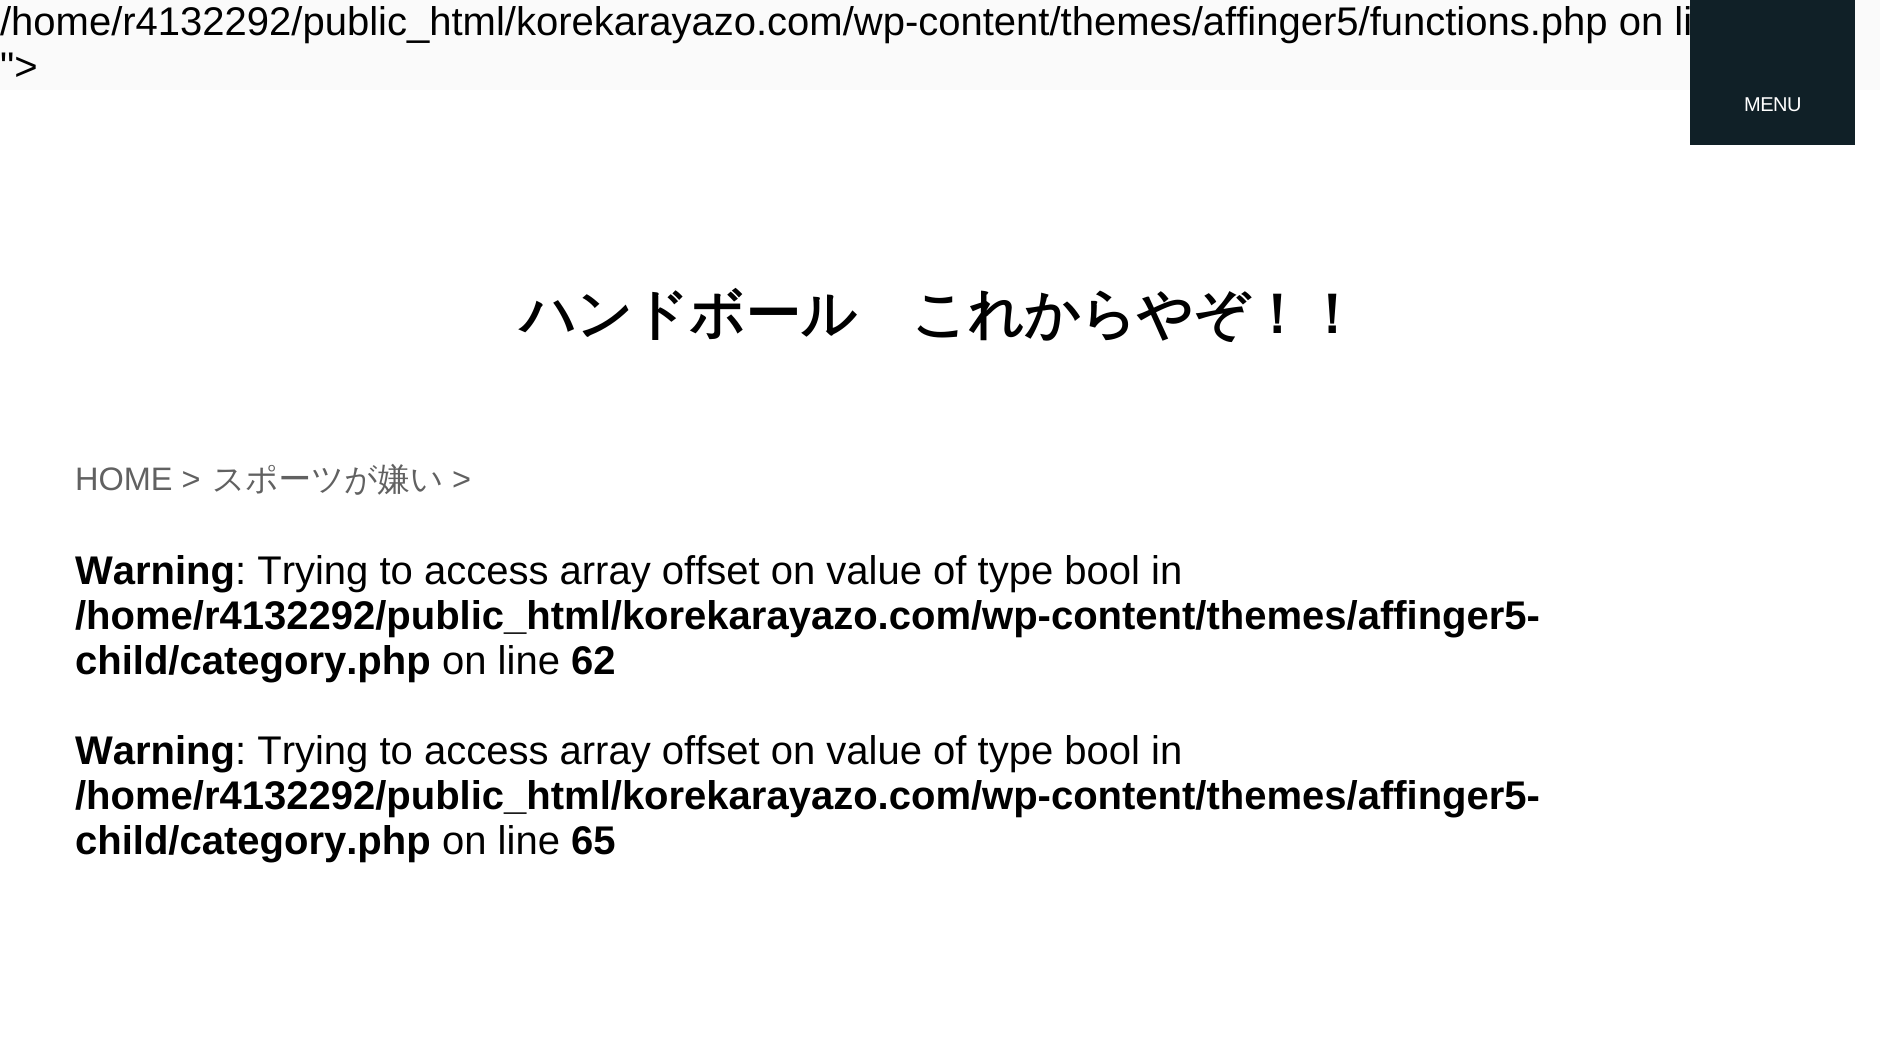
import math
import cairocffi as cairo

surface = cairo.ImageSurface(cairo.FORMAT_RGB24, 1880, 1043)
ctx = cairo.Context(surface)
options = cairo.FontOptions()
options.set_hint_metrics(cairo.HINT_METRICS_OFF)
options.set_hint_style(cairo.HINT_STYLE_NONE)
ctx.set_font_options(options)
ctx.set_miter_limit(4)


def rgb(r, g, b):
    ctx.set_source_rgb(r / 255, g / 255, b / 255)


def face(family, size, italic, bold):
    ctx.select_font_face(family, cairo.FONT_SLANT_ITALIC if italic else cairo.FONT_SLANT_NORMAL, cairo.FONT_WEIGHT_BOLD if bold else cairo.FONT_WEIGHT_NORMAL)
    ctx.set_font_size(size)


def label(x, y, s):
    ctx.move_to(x, y)
    ctx.show_text(s)


def tracked(x, y, s, letter, word):
    ctx.move_to(x, y)
    for ch in s:
        ctx.show_text(ch)
        ctx.rel_move_to(letter + word * (ch == ' '), 0)


def rect(x, y, w, h):
    ctx.rectangle(x, y, w, h)
    ctx.fill()


rgb(250, 250, 250)
ctx.paint()
face('Liberation Sans', 40, 0, 0)
rgb(0, 0, 0)
label(0, 35, '/home/r4132292/public_html/korekarayazo.com/wp-content/themes/affinger5/functions.php on li')
label(0, 80, '">')
rgb(255, 255, 255)
rect(0, 90, 1880, 953)
rgb(16, 32, 39)
rect(1690, 0, 165, 145)
face('Liberation Sans', 20, 0, 0)
rgb(255, 255, 255)
tracked(1744, 111, 'MENU', -0.5, 0)
face('WenQuanYi Zen Hei', 55, 0, 1)
rgb(0, 0, 0)
label(520, 333, 'ハンドボール　これからやぞ！！')
face('Liberation Sans', 32.5, 0, 0)
rgb(97, 97, 97)
label(75, 490, 'HOME >')
face('WenQuanYi Zen Hei Medium', 32.5, 0, 0)
label(212, 490, 'スポーツが嫌い')
face('Liberation Sans', 32.5, 0, 0)
label(452, 490, '>')
face('Liberation Sans', 40, 0, 1)
rgb(0, 0, 0)
label(75, 584, 'Warning')
face('Liberation Sans', 40, 0, 0)
label(235, 584, ': Trying to access array offset on value of type bool in')
face('Liberation Sans', 40, 0, 1)
label(75, 629, '/home/r4132292/public_html/korekarayazo.com/wp-content/themes/affinger5-')
label(75, 674, 'child/category.php')
face('Liberation Sans', 40, 0, 0)
label(442, 674, 'on line')
face('Liberation Sans', 40, 0, 1)
label(571, 674, '62')
label(75, 764, 'Warning')
face('Liberation Sans', 40, 0, 0)
label(235, 764, ': Trying to access array offset on value of type bool in')
face('Liberation Sans', 40, 0, 1)
label(75, 809, '/home/r4132292/public_html/korekarayazo.com/wp-content/themes/affinger5-')
label(75, 854, 'child/category.php')
face('Liberation Sans', 40, 0, 0)
label(442, 854, 'on line')
face('Liberation Sans', 40, 0, 1)
label(571, 854, '65')
surface.write_to_png('render.png')
